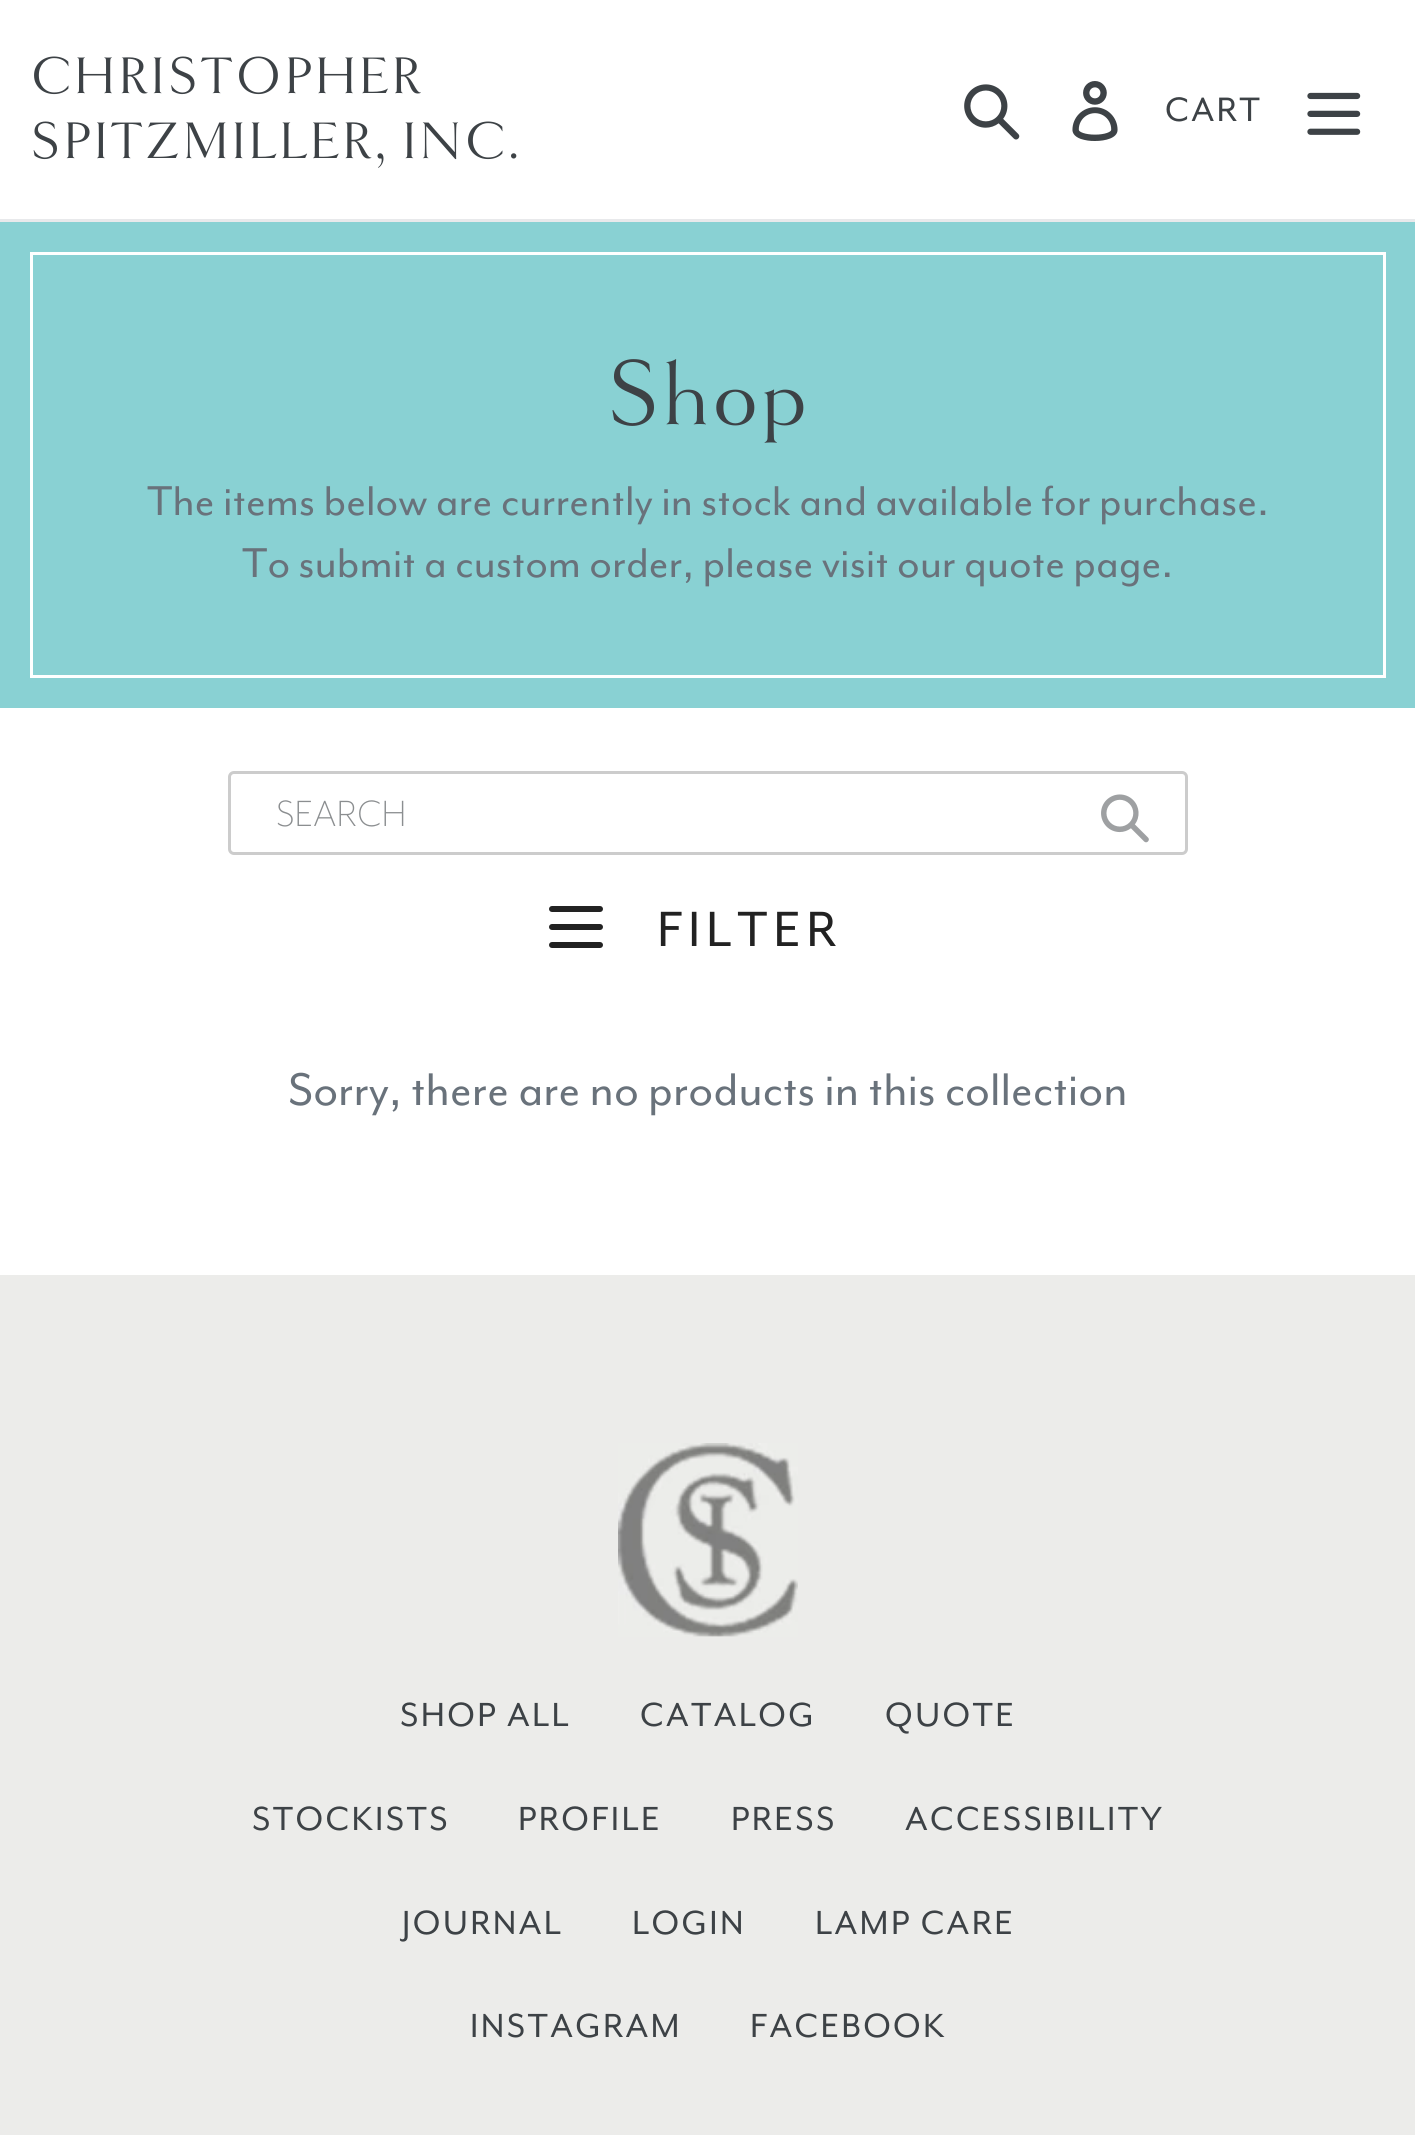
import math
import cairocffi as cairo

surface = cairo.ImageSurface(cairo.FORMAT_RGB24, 1415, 2135)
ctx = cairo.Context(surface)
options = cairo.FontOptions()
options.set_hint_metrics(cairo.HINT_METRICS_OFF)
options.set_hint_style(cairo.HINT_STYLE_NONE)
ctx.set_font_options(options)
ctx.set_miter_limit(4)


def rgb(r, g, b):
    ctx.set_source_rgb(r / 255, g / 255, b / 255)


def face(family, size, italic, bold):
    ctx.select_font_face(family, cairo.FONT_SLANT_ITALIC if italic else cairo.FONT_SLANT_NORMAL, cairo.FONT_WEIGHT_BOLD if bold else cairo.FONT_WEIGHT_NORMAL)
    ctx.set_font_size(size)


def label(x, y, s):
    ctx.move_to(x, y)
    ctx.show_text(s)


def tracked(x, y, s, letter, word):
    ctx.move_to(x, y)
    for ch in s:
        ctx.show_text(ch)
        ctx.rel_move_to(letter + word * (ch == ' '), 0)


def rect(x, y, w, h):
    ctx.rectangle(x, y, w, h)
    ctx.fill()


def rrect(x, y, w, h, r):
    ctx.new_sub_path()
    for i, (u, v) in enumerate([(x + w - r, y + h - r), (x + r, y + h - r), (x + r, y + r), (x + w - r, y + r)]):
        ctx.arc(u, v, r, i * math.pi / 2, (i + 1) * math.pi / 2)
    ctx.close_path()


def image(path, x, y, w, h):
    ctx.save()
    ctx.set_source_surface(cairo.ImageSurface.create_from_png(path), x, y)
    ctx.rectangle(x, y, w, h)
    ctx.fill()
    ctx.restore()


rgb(255, 255, 255)
ctx.paint()
rgb(232, 233, 235)
rect(0, 219, 1415, 3)
face('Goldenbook', 54, 0, 0)
rgb(61, 66, 70)
tracked(30, 93, 'CHRISTOPHER', 2.4, 0)
tracked(30, 158, 'SPITZMILLER, INC.', 2.4, 0)
image('image0.png', 964, 84, 56, 56)
image('image1.png', 1072, 81, 46, 60)
face('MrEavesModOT', 39, 0, 0)
tracked(1165, 121, 'CART', 2.4, 0)
image('image2.png', 1307, 92, 54, 43)
rgb(137, 209, 211)
rect(0, 222, 1415, 486)
ctx.rectangle(31.5, 253.5, 1353, 423)
rgb(255, 255, 255)
ctx.set_line_width(3)
ctx.stroke()
face('Goldenbook', 96, 0, 0)
rgb(61, 66, 70)
tracked(606, 424, 'Shop', 2.4, 0)
face('MrEavesModOT', 48, 0, 0)
rgb(105, 114, 123)
label(147, 515, 'The items below are currently in stock and available for purchase.')
label(242, 577, 'To submit a custom order, please visit our quote page.')
rrect(229.5, 772.5, 957, 81, 4.5)
rgb(204, 204, 204)
ctx.stroke()
face('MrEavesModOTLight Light', 42, 0, 0)
rgb(139, 142, 144)
label(276, 826, 'SEARCH')
image('image3.png', 1101, 794, 48, 49)
rgb(34, 34, 34)
rrect(549, 924, 54, 6, 3)
ctx.fill()
rrect(549, 906, 54, 6, 3)
ctx.fill()
rrect(549, 942, 54, 6, 3)
ctx.fill()
face('MrEavesModOT', 57, 0, 0)
tracked(657, 946, 'FILTER', 5.75, 0)
face('MrEavesModOT', 52.75, 0, 0)
rgb(105, 114, 123)
label(288, 1105, 'Sorry, there are no products in this collection')
rgb(236, 236, 234)
rect(0, 1275, 1415, 860)
image('image4.png', 618, 1443, 180, 194)
face('MrEavesModOT', 38.5, 0, 0)
rgb(61, 66, 70)
tracked(400, 1726, 'SHOP ALL', 2.4, 0)
tracked(640, 1726, 'CATALOG', 2.4, 0)
tracked(885, 1726, 'QUOTE', 2.4, 0)
tracked(252, 1830, 'STOCKISTS', 2.4, 0)
tracked(518, 1830, 'PROFILE', 2.4, 0)
tracked(731, 1830, 'PRESS', 2.4, 0)
tracked(905, 1830, 'ACCESSIBILITY', 2.4, 0)
tracked(402, 1934, 'JOURNAL', 2.4, 0)
tracked(632, 1934, 'LOGIN', 2.4, 0)
tracked(815, 1934, 'LAMP CARE', 2.4, 0)
tracked(470, 2037, 'INSTAGRAM', 2.4, 0)
tracked(750, 2037, 'FACEBOOK', 2.4, 0)
surface.write_to_png('render.png')
